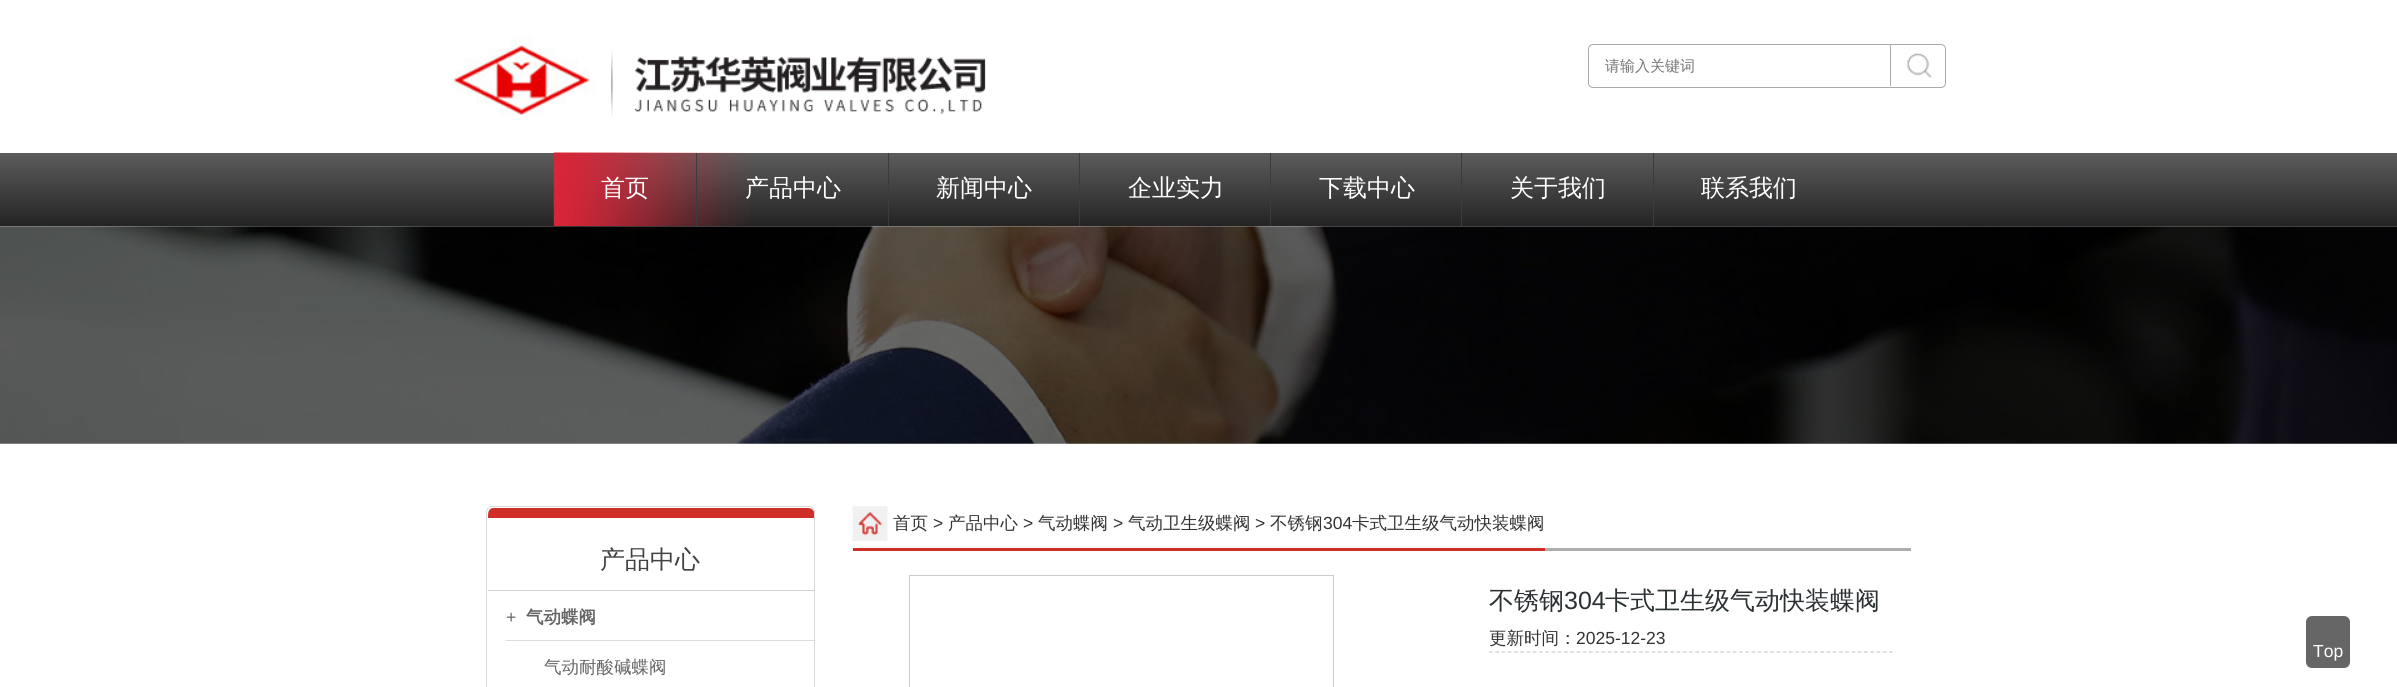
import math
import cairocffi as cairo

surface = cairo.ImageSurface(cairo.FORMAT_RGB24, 2397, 687)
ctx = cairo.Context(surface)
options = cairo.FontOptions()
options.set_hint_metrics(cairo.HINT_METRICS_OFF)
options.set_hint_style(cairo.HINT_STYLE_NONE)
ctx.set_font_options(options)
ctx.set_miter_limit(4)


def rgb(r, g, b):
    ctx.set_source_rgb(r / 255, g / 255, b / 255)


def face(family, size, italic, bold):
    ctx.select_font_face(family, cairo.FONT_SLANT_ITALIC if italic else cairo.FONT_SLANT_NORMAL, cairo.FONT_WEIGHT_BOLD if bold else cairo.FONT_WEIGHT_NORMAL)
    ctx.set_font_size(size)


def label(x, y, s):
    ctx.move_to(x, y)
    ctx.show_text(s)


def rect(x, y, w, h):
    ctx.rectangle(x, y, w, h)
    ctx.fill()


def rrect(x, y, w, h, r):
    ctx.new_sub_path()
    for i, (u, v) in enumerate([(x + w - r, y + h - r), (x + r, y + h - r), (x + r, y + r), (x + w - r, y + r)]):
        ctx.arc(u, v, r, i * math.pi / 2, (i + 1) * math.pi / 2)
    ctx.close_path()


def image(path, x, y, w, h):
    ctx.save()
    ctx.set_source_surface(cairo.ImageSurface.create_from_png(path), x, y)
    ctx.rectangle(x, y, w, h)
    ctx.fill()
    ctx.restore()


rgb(255, 255, 255)
ctx.paint()
image('image0.png', 453, 36, 533, 80)
rrect(1588.5, 44.5, 357, 43, 4.5)
rgb(170, 170, 170)
ctx.set_line_width(1)
ctx.stroke()
rect(1890, 45, 1, 41)
face('WenQuanYi Zen Hei Medium', 15, 0, 0)
rgb(117, 117, 117)
label(1605, 71, '请输入关键词')
image('image1.png', 1907, 53, 25, 25)
gradient = cairo.LinearGradient(1199, 152, 1199, 226)
gradient.add_color_stop_rgba(0, 0.365, 0.365, 0.365, 1)
gradient.add_color_stop_rgba(1, 0.141, 0.141, 0.141, 1)
ctx.set_source(gradient)
rect(0, 153, 2397, 73)
image('image2.png', 553, 152, 196, 75)
face('WenQuanYi Zen Hei Medium', 24, 0, 0)
rgb(255, 255, 255)
label(601, 196, '首页')
rgb(60, 60, 60)
rect(696, 153, 1, 73)
rgb(255, 255, 255)
label(745, 196, '产品中心')
rgb(60, 60, 60)
rect(888, 153, 1, 73)
rgb(255, 255, 255)
label(936, 196, '新闻中心')
rgb(60, 60, 60)
rect(1079, 153, 1, 73)
rgb(255, 255, 255)
label(1128, 196, '企业实力')
rgb(60, 60, 60)
rect(1270, 153, 1, 73)
rgb(255, 255, 255)
label(1319, 196, '下载中心')
rgb(60, 60, 60)
rect(1461, 153, 1, 73)
rgb(255, 255, 255)
label(1510, 196, '关于我们')
rgb(60, 60, 60)
rect(1653, 153, 1, 73)
rgb(255, 255, 255)
label(1701, 196, '联系我们')
image('image3.png', 0, 226, 2397, 218)
rrect(486.5, 506.5, 328, 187, 5.5)
rgb(217, 217, 217)
ctx.stroke()
rgb(207, 46, 38)
ctx.new_path()
ctx.move_to(494, 508)
ctx.line_to(808, 508)
ctx.curve_to(810, 508, 813, 509, 814, 512)
ctx.line_to(814, 518)
ctx.line_to(488, 518)
ctx.curve_to(488, 513, 488, 508, 494, 508)
ctx.close_path()
ctx.fill()
rgb(211, 211, 211)
rect(488, 590, 326, 1)
face('WenQuanYi Zen Hei Medium', 25, 0, 0)
rgb(65, 65, 65)
label(600, 568, '产品中心')
rgb(221, 221, 221)
rect(506, 640, 308, 1)
face('Liberation Sans', 17.5, 0, 0)
rgb(102, 102, 102)
label(506, 623, '+')
face('WenQuanYi Zen Hei', 17.5, 0, 1)
label(526, 623, '气动蝶阀')
face('WenQuanYi Zen Hei Medium', 17.5, 0, 0)
label(544, 673, '气动耐酸碱蝶阀')
rgb(207, 46, 38)
rect(853, 548, 692, 3)
image('image4.png', 852, 506, 36, 35)
rgb(51, 51, 51)
label(893, 529, '首页')
face('Liberation Sans', 17.5, 0, 0)
label(933, 529, '>')
face('WenQuanYi Zen Hei Medium', 17.5, 0, 0)
label(948, 529, '产品中心')
face('Liberation Sans', 17.5, 0, 0)
label(1023, 529, '>')
face('WenQuanYi Zen Hei Medium', 17.5, 0, 0)
label(1038, 529, '气动蝶阀')
face('Liberation Sans', 17.5, 0, 0)
label(1113, 529, '>')
face('WenQuanYi Zen Hei Medium', 17.5, 0, 0)
label(1128, 529, '气动卫生级蝶阀')
face('Liberation Sans', 17.5, 0, 0)
label(1255, 529, '>')
face('WenQuanYi Zen Hei Medium', 17.5, 0, 0)
label(1270, 529, '不锈钢')
face('Liberation Sans', 17.5, 0, 0)
label(1323, 529, '304')
face('WenQuanYi Zen Hei Medium', 17.5, 0, 0)
label(1352, 529, '卡式卫生级气动快装蝶阀')
rgb(173, 173, 173)
rect(1545, 548, 366, 3)
ctx.rectangle(909.5, 575.5, 424, 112)
rgb(204, 204, 204)
ctx.stroke()
face('WenQuanYi Zen Hei Medium', 25, 0, 0)
rgb(43, 48, 51)
label(1489, 609, '不锈钢')
face('Liberation Sans', 25, 0, 0)
label(1564, 609, '304')
face('WenQuanYi Zen Hei Medium', 25, 0, 0)
label(1605, 609, '卡式卫生级气动快装蝶阀')
face('WenQuanYi Zen Hei Medium', 17.5, 0, 0)
rgb(51, 51, 51)
label(1489, 644, '更新时间：')
face('Liberation Sans', 17.5, 0, 0)
label(1576, 644, '2025-12-23')
ctx.new_path()
ctx.move_to(1489, 652)
ctx.line_to(1892.5, 652)
rgb(204, 204, 204)
ctx.set_line_width(1.2)
ctx.set_dash([3.75, 2.5])
ctx.stroke()
rgb(102, 102, 102)
rrect(2306, 616, 44, 52, 6)
ctx.fill()
rgb(255, 255, 255)
label(2313, 657, 'Top')
surface.write_to_png('render.png')
